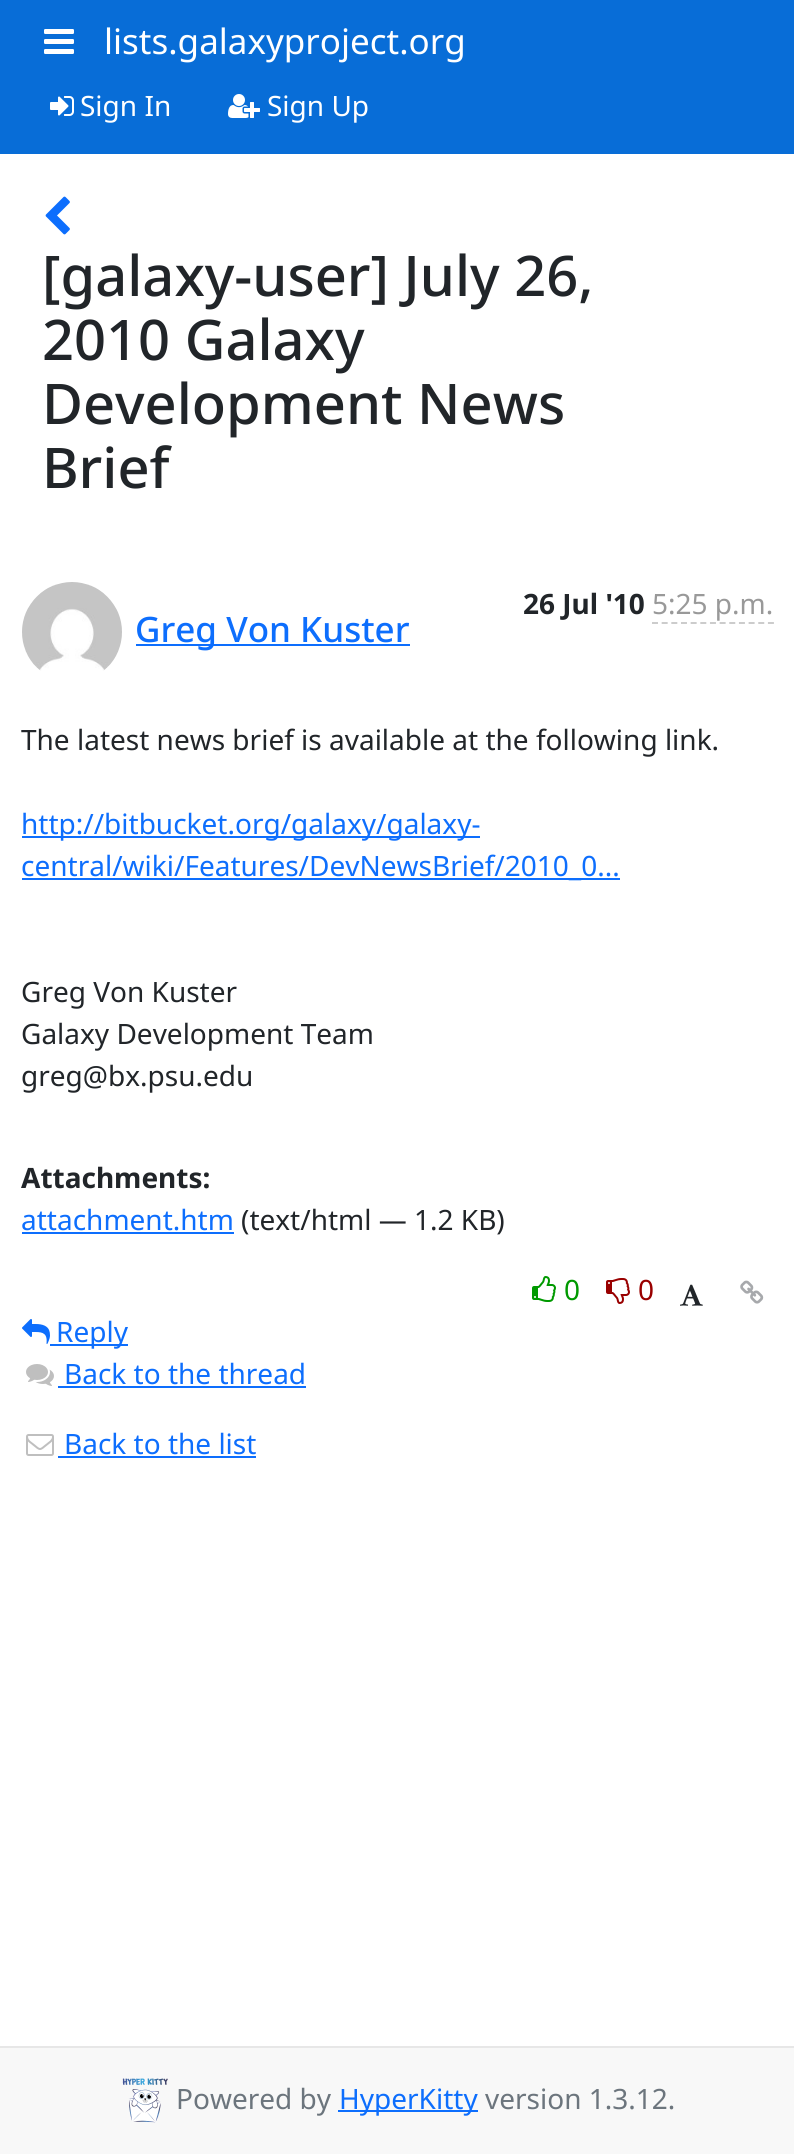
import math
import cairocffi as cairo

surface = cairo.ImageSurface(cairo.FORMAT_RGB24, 794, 2154)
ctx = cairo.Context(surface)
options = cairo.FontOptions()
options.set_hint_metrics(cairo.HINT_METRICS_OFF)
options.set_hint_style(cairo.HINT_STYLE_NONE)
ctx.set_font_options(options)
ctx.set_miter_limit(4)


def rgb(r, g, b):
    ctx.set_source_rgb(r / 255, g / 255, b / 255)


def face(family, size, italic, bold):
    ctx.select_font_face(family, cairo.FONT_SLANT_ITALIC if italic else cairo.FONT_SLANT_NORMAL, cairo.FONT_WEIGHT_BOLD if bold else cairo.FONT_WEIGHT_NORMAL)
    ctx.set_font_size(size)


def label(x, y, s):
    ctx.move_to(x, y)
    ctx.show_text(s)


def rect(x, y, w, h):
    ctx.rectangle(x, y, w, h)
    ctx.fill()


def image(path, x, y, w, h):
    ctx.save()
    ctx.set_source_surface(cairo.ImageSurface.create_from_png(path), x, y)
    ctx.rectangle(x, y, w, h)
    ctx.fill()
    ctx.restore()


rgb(255, 255, 255)
ctx.paint()
rgb(8, 109, 215)
rect(0, 0, 794, 154)
image('image0.png', 44, 29, 30, 25)
face('Noto Sans', 35, 0, 0)
rgb(255, 255, 255)
label(104, 54, 'lists.galaxyproject.org')
image('image1.png', 50, 96, 24, 20)
face('Noto Sans', 28, 0, 0)
label(80, 116, 'Sign In')
image('image2.png', 228, 94, 32, 24)
label(267, 116, 'Sign Up')
image('image3.png', 45, 196, 25, 39)
face('Noto Sans Medium', 56, 0, 0)
rgb(33, 37, 41)
label(42, 296, '[galaxy-user] July 26,')
label(42, 360, '2010 Galaxy')
label(42, 424, 'Development News')
label(42, 488, 'Brief')
face('Noto Sans', 28, 0, 1)
label(523, 614, '26 Jul \'10')
face('Noto Sans', 28, 0, 0)
rgb(153, 153, 153)
label(652, 614, '5:25 p.m.')
ctx.new_path()
ctx.move_to(652, 623)
ctx.line_to(774, 623)
rgb(204, 204, 204)
ctx.set_dash([6, 3.66])
ctx.stroke()
image('image4.png', 22, 582, 100, 89)
rgb(13, 110, 253)
rect(136, 644, 274, 2)
face('Noto Sans Medium', 35, 0, 0)
label(135, 642, 'Greg Von Kuster')
face('Noto Sans', 28, 0, 0)
rgb(33, 37, 41)
label(21, 750, 'The latest news brief is available at the following link.')
rgb(13, 110, 253)
rect(22, 836, 458, 2)
label(21, 834, 'http://bitbucket.org/galaxy/galaxy-')
rect(22, 878, 598, 2)
label(21, 876, 'central/wiki/Features/DevNewsBrief/2010_0...')
rgb(33, 37, 41)
label(21, 1002, 'Greg Von Kuster')
label(21, 1044, 'Galaxy Development Team')
label(21, 1086, 'greg@bx.psu.edu')
face('Noto Sans', 28, 0, 1)
label(21, 1188, 'Attachments:')
face('Noto Sans', 28, 0, 0)
rgb(13, 110, 253)
label(21, 1230, 'attachment.htm')
rect(22, 1232, 212, 2)
rgb(33, 37, 41)
label(241, 1230, '(text/html — 1.2 KB)')
image('image5.png', 532, 1276, 24, 26)
rgb(0, 153, 0)
label(564, 1300, '0')
image('image6.png', 606, 1278, 24, 26)
rgb(153, 0, 0)
label(638, 1300, '0')
image('image7.png', 680, 1284, 23, 22)
image('image8.png', 740, 1280, 24, 24)
image('image9.png', 22, 1319, 28, 25)
rgb(13, 110, 253)
rect(50, 1344, 78, 2)
label(56, 1342, 'Reply')
image('image10.png', 26, 1364, 28, 22)
label(64, 1384, 'Back to the thread')
rect(58, 1386, 248, 2)
image('image11.png', 26, 1434, 28, 22)
label(64, 1454, 'Back to the list')
rect(58, 1456, 198, 2)
rgb(248, 248, 248)
rect(0, 2048, 794, 106)
rgb(231, 231, 231)
rect(0, 2046, 794, 2)
image('image12.png', 122, 2078, 46, 45)
rgb(108, 117, 125)
label(176, 2109, 'Powered by')
rgb(13, 110, 253)
rect(338, 2110, 140, 2)
label(339, 2109, 'HyperKitty')
rgb(108, 117, 125)
label(485, 2109, 'version 1.3.12.')
surface.write_to_png('render.png')
